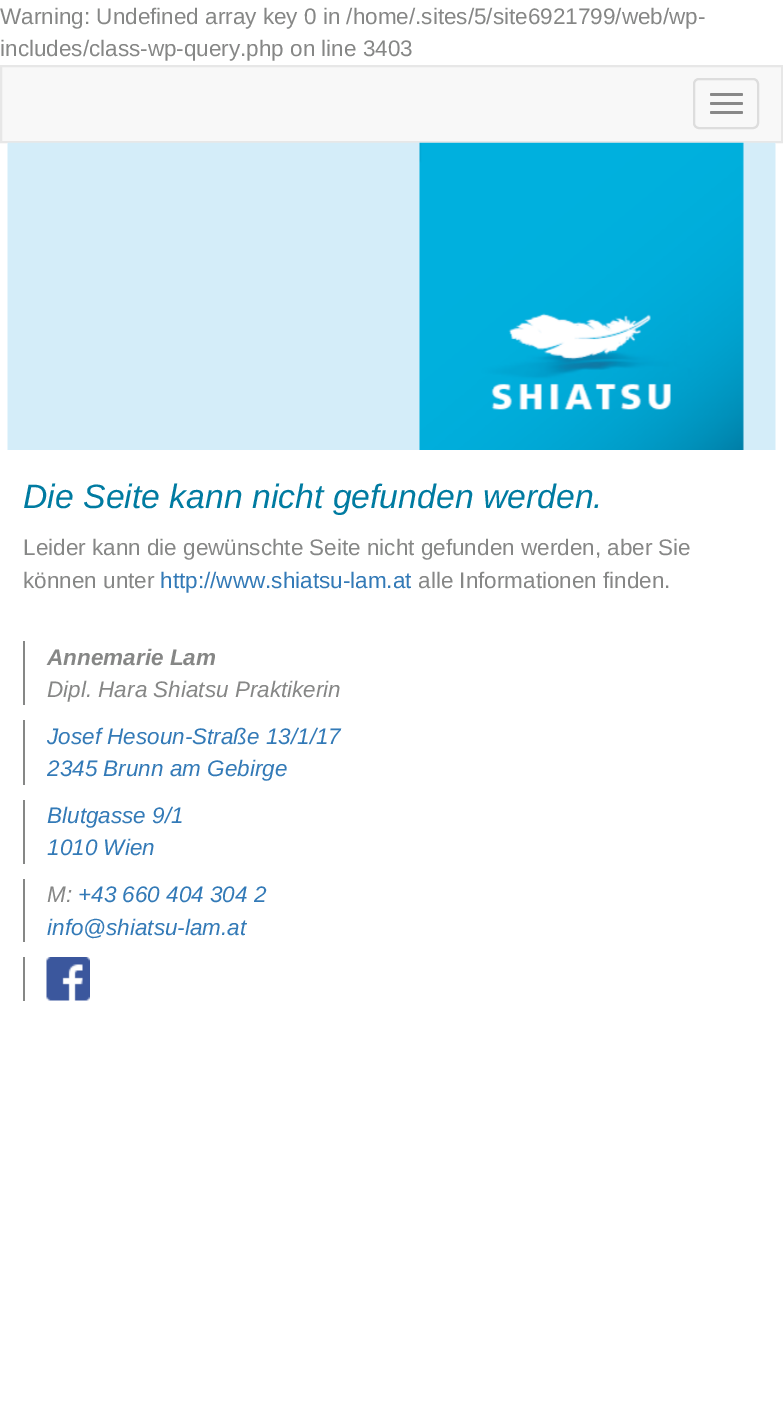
%!PS-Adobe-3.0
%%BoundingBox: 0 0 783 1420
%%LanguageLevel: 3
%%Pages: 1
%%EndComments
%%BeginProlog
/setink { 3 { 255 div 3 1 roll } repeat setrgbcolor } def
/usefont { [ exch dup neg 0 0 3 -1 roll 0 0 ] selectfont } def
/drawtext { setink usefont moveto show } def
/fillbox { setink rectfill } def
/rrect { 5 dict begin { /r /h /w /y /x } { exch def } forall
  x r add y moveto x w add y 2 copy h add r arct x w add y h add x 1 index r arct
  x y h add x y r arct x y 2 copy exch w add exch r arct closepath end } def
/drawimage { 5 dict begin { /h /w /y /x /name } { exch def } forall
  gsave x y translate w h scale
  w h 8 [w 0 0 h 0 0] name (r) file false 3 colorimage grestore end } def
%%EndProlog
%%BeginSetup
<< /PageSize [783 1420] >> setpagedevice
%%EndSetup
%%Page: 1 1
0 1420 translate 1 -1 scale
4 setmiterlimit
0 0 783 1420 255 255 255 fillbox
(Warning: Undefined array key 0 in /home/.sites/5/site6921799/web/wp-) 0 24 /LiberationSans-Regular 22.5 134 135 134 drawtext
(includes/class-wp-query.php on line 3403) 0 56 /LiberationSans-Regular 22.5 134 135 134 drawtext
248 248 248 setink
1 66 moveto 782 66 lineto 782 142 lineto 1 142 lineto closepath gsave fill grestore
231 231 231 setink
2 setlinewidth
stroke
221 221 221 setink
694 79 64 49 5 rrect stroke
136 136 136 setink
710 93 33 3 1.5 rrect fill
710 102 33 3 1.5 rrect fill
710 111 33 3 1.5 rrect fill
(assets/img1.rgb) 7 142 769 308 drawimage
(Die Seite kann nicht gefunden werden.) 23 508 /LiberationSans-Italic 33.75 0 123 161 drawtext
(Leider kann die gewünschte Seite nicht gefunden werden, aber Sie) 23 555 /LiberationSans-Regular 22.5 134 135 134 drawtext
(können unter) 23 588 /LiberationSans-Regular 22.5 134 135 134 drawtext
(http://www.shiatsu-lam.at) 160 588 /LiberationSans-Regular 22.5 51 122 183 drawtext
(alle Informationen finden.) 418 588 /LiberationSans-Regular 22.5 134 135 134 drawtext
23 641 2 64 134 135 134 fillbox
(Annemarie Lam) 47 665 /LiberationSans-BoldItalic 22.5 134 135 134 drawtext
(Dipl. Hara Shiatsu Praktikerin) 47 697 /LiberationSans-Italic 22.5 134 135 134 drawtext
23 720 2 65 134 135 134 fillbox
(Josef Hesoun-Straße 13/1/17) 47 744 /LiberationSans-Italic 22.5 51 122 183 drawtext
(2345 Brunn am Gebirge) 47 776 /LiberationSans-Italic 22.5 51 122 183 drawtext
23 800 2 64 134 135 134 fillbox
(Blutgasse 9/1) 47 823 /LiberationSans-Italic 22.5 51 122 183 drawtext
(1010 Wien) 47 855 /LiberationSans-Italic 22.5 51 122 183 drawtext
23 879 2 63 134 135 134 fillbox
(M:) 47 902 /LiberationSans-Italic 22.5 134 135 134 drawtext
(+43 660 404 304 2) 78 902 /LiberationSans-Italic 22.5 51 122 183 drawtext
(info@shiatsu-lam.at) 47 935 /LiberationSans-Italic 22.5 51 122 183 drawtext
23 957 2 44 134 135 134 fillbox
(assets/img2.rgb) 46 957 44 44 drawimage
showpage
%%EOF
